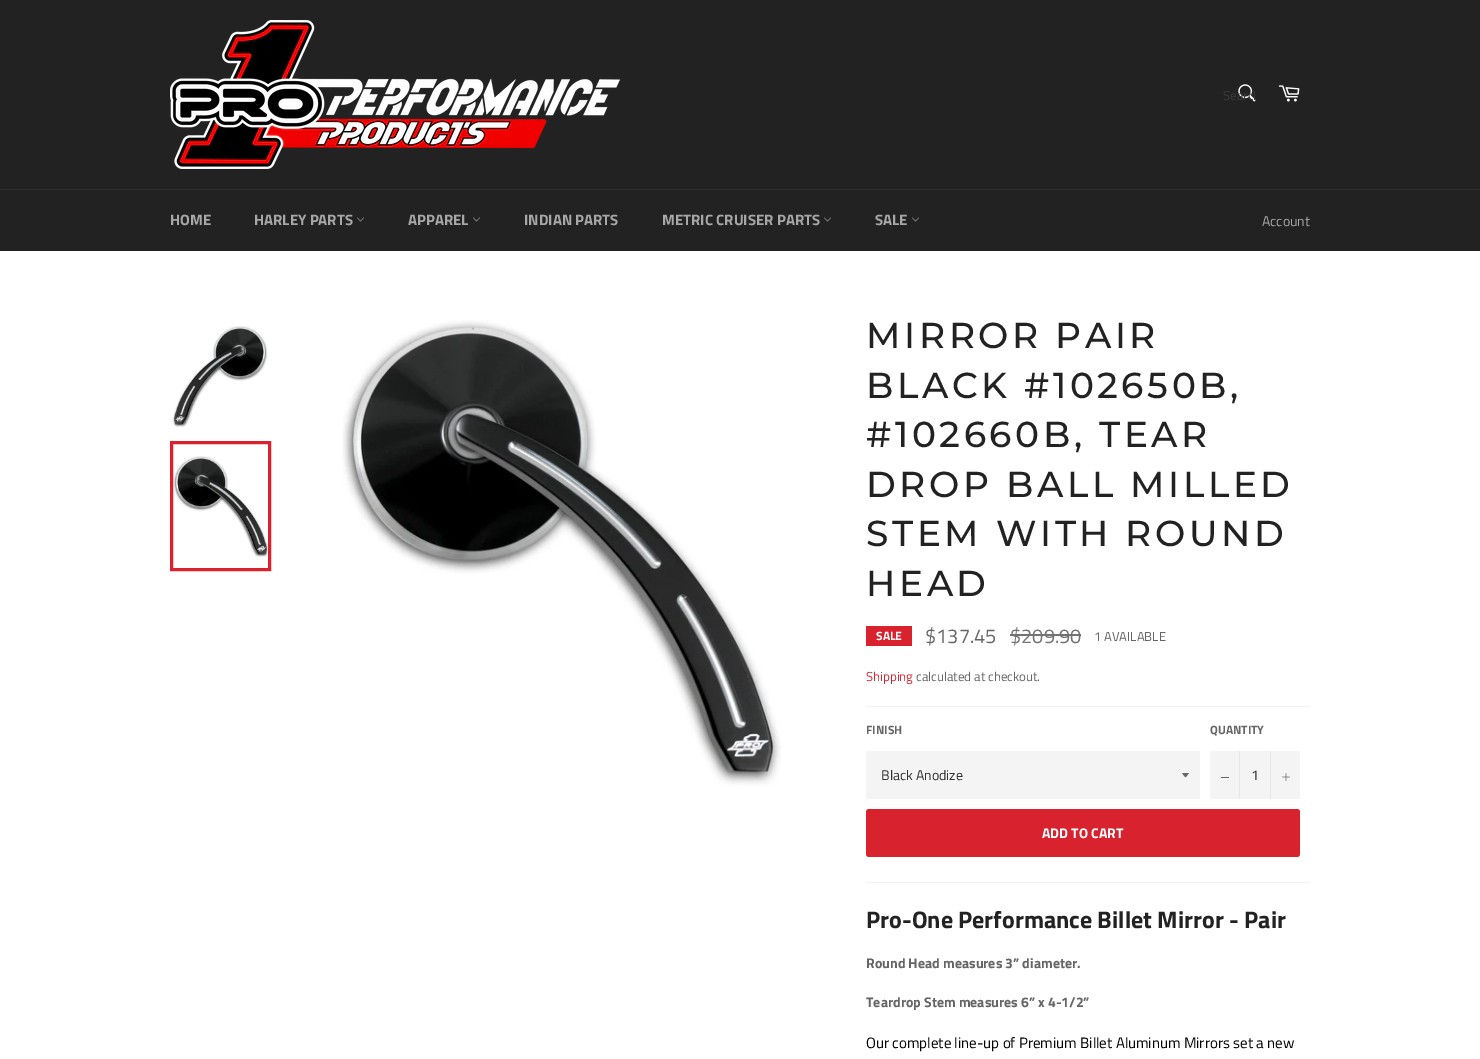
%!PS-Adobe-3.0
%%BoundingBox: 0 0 1480 1059
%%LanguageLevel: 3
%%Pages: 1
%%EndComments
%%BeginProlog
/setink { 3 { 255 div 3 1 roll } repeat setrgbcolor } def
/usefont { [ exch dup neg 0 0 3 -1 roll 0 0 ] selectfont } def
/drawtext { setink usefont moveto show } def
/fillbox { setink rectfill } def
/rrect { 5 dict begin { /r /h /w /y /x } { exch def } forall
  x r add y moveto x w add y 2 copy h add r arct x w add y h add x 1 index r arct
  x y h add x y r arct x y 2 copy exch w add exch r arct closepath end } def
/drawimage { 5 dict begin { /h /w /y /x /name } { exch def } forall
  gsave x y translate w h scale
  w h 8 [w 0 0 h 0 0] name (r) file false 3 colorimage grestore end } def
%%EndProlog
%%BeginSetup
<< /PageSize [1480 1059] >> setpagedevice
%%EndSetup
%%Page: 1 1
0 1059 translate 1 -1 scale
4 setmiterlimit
0 0 1480 1059 34 34 34 fillbox
(assets/img1.rgb) 170 20 450 149 drawimage
(assets/img2.rgb) 1238 84 18 18 drawimage
gsave
1223 85 32 20 rectclip
(Search) 1223 100 /TitilliumWeb-Regular 13 59 59 59 drawtext
grestore
(assets/img3.rgb) 1278 85 22 17 drawimage
0 189 1480 1 47 47 47 fillbox
(HOME) 170 225 /TitilliumWeb-Bold 15 167 167 167 drawtext
(HARLEY PARTS) 254 225 /TitilliumWeb-Bold 15 167 167 167 drawtext
(assets/img4.rgb) 357 217 7 5 drawimage
(APPAREL) 408 225 /TitilliumWeb-Bold 15 167 167 167 drawtext
(assets/img4.rgb) 473 217 7 5 drawimage
(INDIAN PARTS) 524 225 /TitilliumWeb-Bold 15 167 167 167 drawtext
(METRIC CRUISER PARTS) 662 225 /TitilliumWeb-Bold 15 167 167 167 drawtext
(assets/img4.rgb) 824 217 7 5 drawimage
(SALE) 875 225 /TitilliumWeb-Bold 15 167 167 167 drawtext
(assets/img4.rgb) 912 217 7 5 drawimage
(Account) 1262 226 /TitilliumWeb-Regular 14 167 167 167 drawtext
0 251 1480 808 255 255 255 fillbox
(assets/img5.rgb) 172 326 96 101 drawimage
(assets/img6.rgb) 173 456 95 102 drawimage
216 35 47 setink
3 setlinewidth
171.5 442.5 98 127 rectstroke
(assets/img7.rgb) 342 320 440 466 drawimage
/Montserrat-Medium 36 usefont
34 34 34 setink
866 348 moveto 3.6 0 (MIRROR PAIR) ashow
866 398 moveto 3.6 0 (BLACK #102650B,) ashow
866 447 moveto 3.6 0 (#102660B, TEAR) ashow
866 497 moveto 3.6 0 (DROP BALL MILLED) ashow
866 546 moveto 3.6 0 (STEM WITH ROUND) ashow
866 596 moveto 3.6 0 (HEAD) ashow
866 626 46 20 216 35 47 fillbox
(SALE) 876 640 /TitilliumWeb-Bold 12 255 255 255 drawtext
($137.45) 925 643 /TitilliumWeb-Regular 20 102 102 102 drawtext
($209.90) 1010 643 /TitilliumWeb-Regular 20 115 115 115 drawtext
1010 634 71 2 115 115 115 fillbox
(1 AVAILABLE) 1094 641 /TitilliumWeb-Regular 13 102 102 102 drawtext
(Shipping) 866 681 /TitilliumWeb-Regular 13 216 35 47 drawtext
(calculated at checkout.) 916 681 /TitilliumWeb-Regular 13 102 102 102 drawtext
866 706 444 1 240 240 240 fillbox
(FINISH) 866 734 /TitilliumWeb-Bold 12 102 102 102 drawtext
866 751 334 48 244 244 244 fillbox
102 102 102 setink
1182 773 moveto 1186.5 778.5 1184.5 778.5 1189 773 curveto closepath fill
(Black Anodize) 881 780 /TitilliumWeb-Regular 14 51 51 51 drawtext
(QUANTITY) 1210 734 /TitilliumWeb-Bold 12 102 102 102 drawtext
1210 751 90 48 244 244 244 fillbox
1239 751 1 48 231 231 231 fillbox
1221 777 8 1 102 102 102 fillbox
(1) 1251 780 /TitilliumWeb-Regular 14 51 51 51 drawtext
1270 751 1 48 231 231 231 fillbox
(assets/img8.rgb) 1282 773 8 8 drawimage
216 35 47 setink
866 809 434 48 3 rrect fill
(ADD TO CART) 1042 838 /TitilliumWeb-Bold 14 255 255 255 drawtext
866 882 444 1 240 240 240 fillbox
(Pro-One Performance Billet Mirror - Pair) 866 928 /TitilliumWeb-Bold 24 34 34 34 drawtext
(Round Head measures 3” diameter.) 866 968 /TitilliumWeb-Bold 14 102 102 102 drawtext
(Teardrop Stem measures 6” x 4-1/2”) 866 1007 /TitilliumWeb-Bold 14 102 102 102 drawtext
(Our complete line-up of Premium Billet Aluminum Mirrors set a new) 866 1048 /TitilliumWeb-Regular 15 0 0 0 drawtext
showpage
%%EOF
